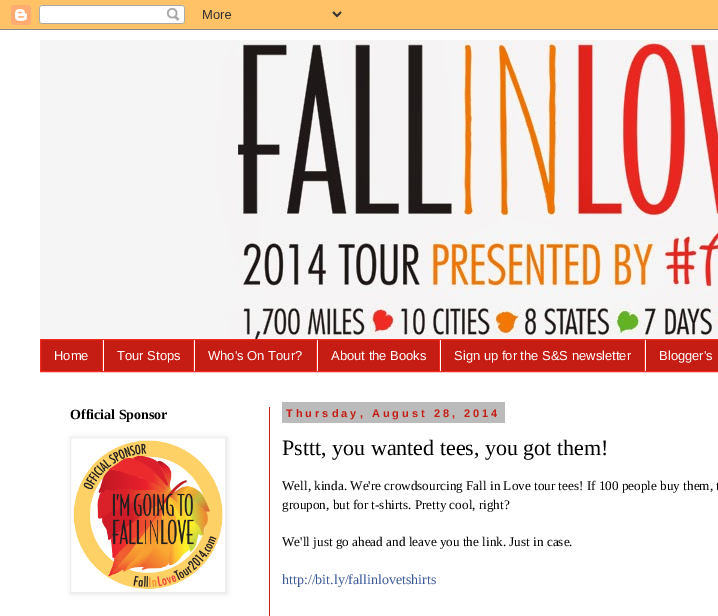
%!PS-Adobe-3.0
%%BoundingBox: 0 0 718 616
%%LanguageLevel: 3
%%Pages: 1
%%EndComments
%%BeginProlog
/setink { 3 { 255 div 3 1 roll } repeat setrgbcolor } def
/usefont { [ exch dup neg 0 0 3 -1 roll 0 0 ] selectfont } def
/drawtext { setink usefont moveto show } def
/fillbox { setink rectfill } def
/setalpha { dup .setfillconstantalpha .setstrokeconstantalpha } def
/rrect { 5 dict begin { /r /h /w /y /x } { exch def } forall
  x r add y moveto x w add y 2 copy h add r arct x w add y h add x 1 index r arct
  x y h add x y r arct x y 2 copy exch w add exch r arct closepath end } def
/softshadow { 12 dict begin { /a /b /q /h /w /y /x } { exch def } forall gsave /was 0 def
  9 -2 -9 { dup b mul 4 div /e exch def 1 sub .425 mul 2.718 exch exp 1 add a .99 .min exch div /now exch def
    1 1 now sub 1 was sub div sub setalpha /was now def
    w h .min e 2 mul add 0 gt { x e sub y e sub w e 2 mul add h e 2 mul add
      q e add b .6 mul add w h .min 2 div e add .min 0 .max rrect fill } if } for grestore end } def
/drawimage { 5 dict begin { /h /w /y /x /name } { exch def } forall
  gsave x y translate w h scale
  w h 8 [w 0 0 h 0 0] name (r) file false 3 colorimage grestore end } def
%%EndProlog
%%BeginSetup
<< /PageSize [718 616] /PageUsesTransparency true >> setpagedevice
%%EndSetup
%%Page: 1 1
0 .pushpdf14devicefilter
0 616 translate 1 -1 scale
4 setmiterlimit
0 0 718 616 255 153 0 fillbox
(assets/img1.rgb) 0 0 718 30 drawimage
0 30 718 586 255 255 255 fillbox
(assets/img2.rgb) 40 40 678 299 drawimage
197 29 19 setink
40.5 339.5 moveto 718.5 339.5 lineto 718.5 371.5 lineto 40.5 371.5 lineto closepath gsave fill grestore
242 41 30 setink
stroke
102 340 1 31 242 41 30 fillbox
(Home) 54 360 /Arimo-Regular 13 255 255 255 drawtext
193 340 1 31 242 41 30 fillbox
103 340 1 31 255 255 255 fillbox
(Tour Stops) 117 360 /Arimo-Regular 13 255 255 255 drawtext
316 340 1 31 242 41 30 fillbox
194 340 1 31 255 255 255 fillbox
(Who's On Tour?) 208 360 /Arimo-Regular 13 255 255 255 drawtext
439 340 1 31 242 41 30 fillbox
317 340 1 31 255 255 255 fillbox
(About the Books) 331 360 /Arimo-Regular 13 255 255 255 drawtext
644 340 1 31 242 41 30 fillbox
440 340 1 31 255 255 255 fillbox
(Sign up for the S&S newsletter) 454 360 /Arimo-Regular 13 255 255 255 drawtext
645 340 1 31 255 255 255 fillbox
(Blogger's) 659 360 /Arimo-Regular 13 255 255 255 drawtext
269 407 1 209 197 29 19 fillbox
(Official Sponsor) 70 419 /LiberationSerif-Bold 14 0 0 0 drawtext
gsave
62 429 moveto 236 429 lineto 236 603 lineto 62 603 lineto closepath 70 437 moveto 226 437 lineto 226 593 lineto 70 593 lineto closepath eoclip newpath
71 438 156 156 0 2.5 0.1 softshadow
grestore
238 238 238 setink
70.5 437.5 155 155 rectstroke
(assets/img3.rgb) 73 440 150 149 drawimage
282 402 223 21 187 187 187 fillbox
/LiberationSans-Bold 11 usefont
197 29 19 setink
286 417 moveto 3 0 (Thursday, August 28, 2014) ashow
(Psttt, you wanted tees, you got them!) 282 455 /LiberationSerif-Regular 22 0 0 0 drawtext
(Well, kinda. We're crowdsourcing Fall in Love tour tees! If 100 people buy them, t) 282 490 /LiberationSerif-Regular 13.2 0 0 0 drawtext
(groupon, but for t-shirts. Pretty cool, right?) 282 509 /LiberationSerif-Regular 13.2 0 0 0 drawtext
(We'll just go ahead and leave you the link. Just in case.) 282 546 /LiberationSerif-Regular 13.2 0 0 0 drawtext
(http://bit.ly/fallinlovetshirts) 282 584 /LiberationSerif-Regular 14 59 89 152 drawtext
.poppdf14devicefilter showpage
%%EOF
